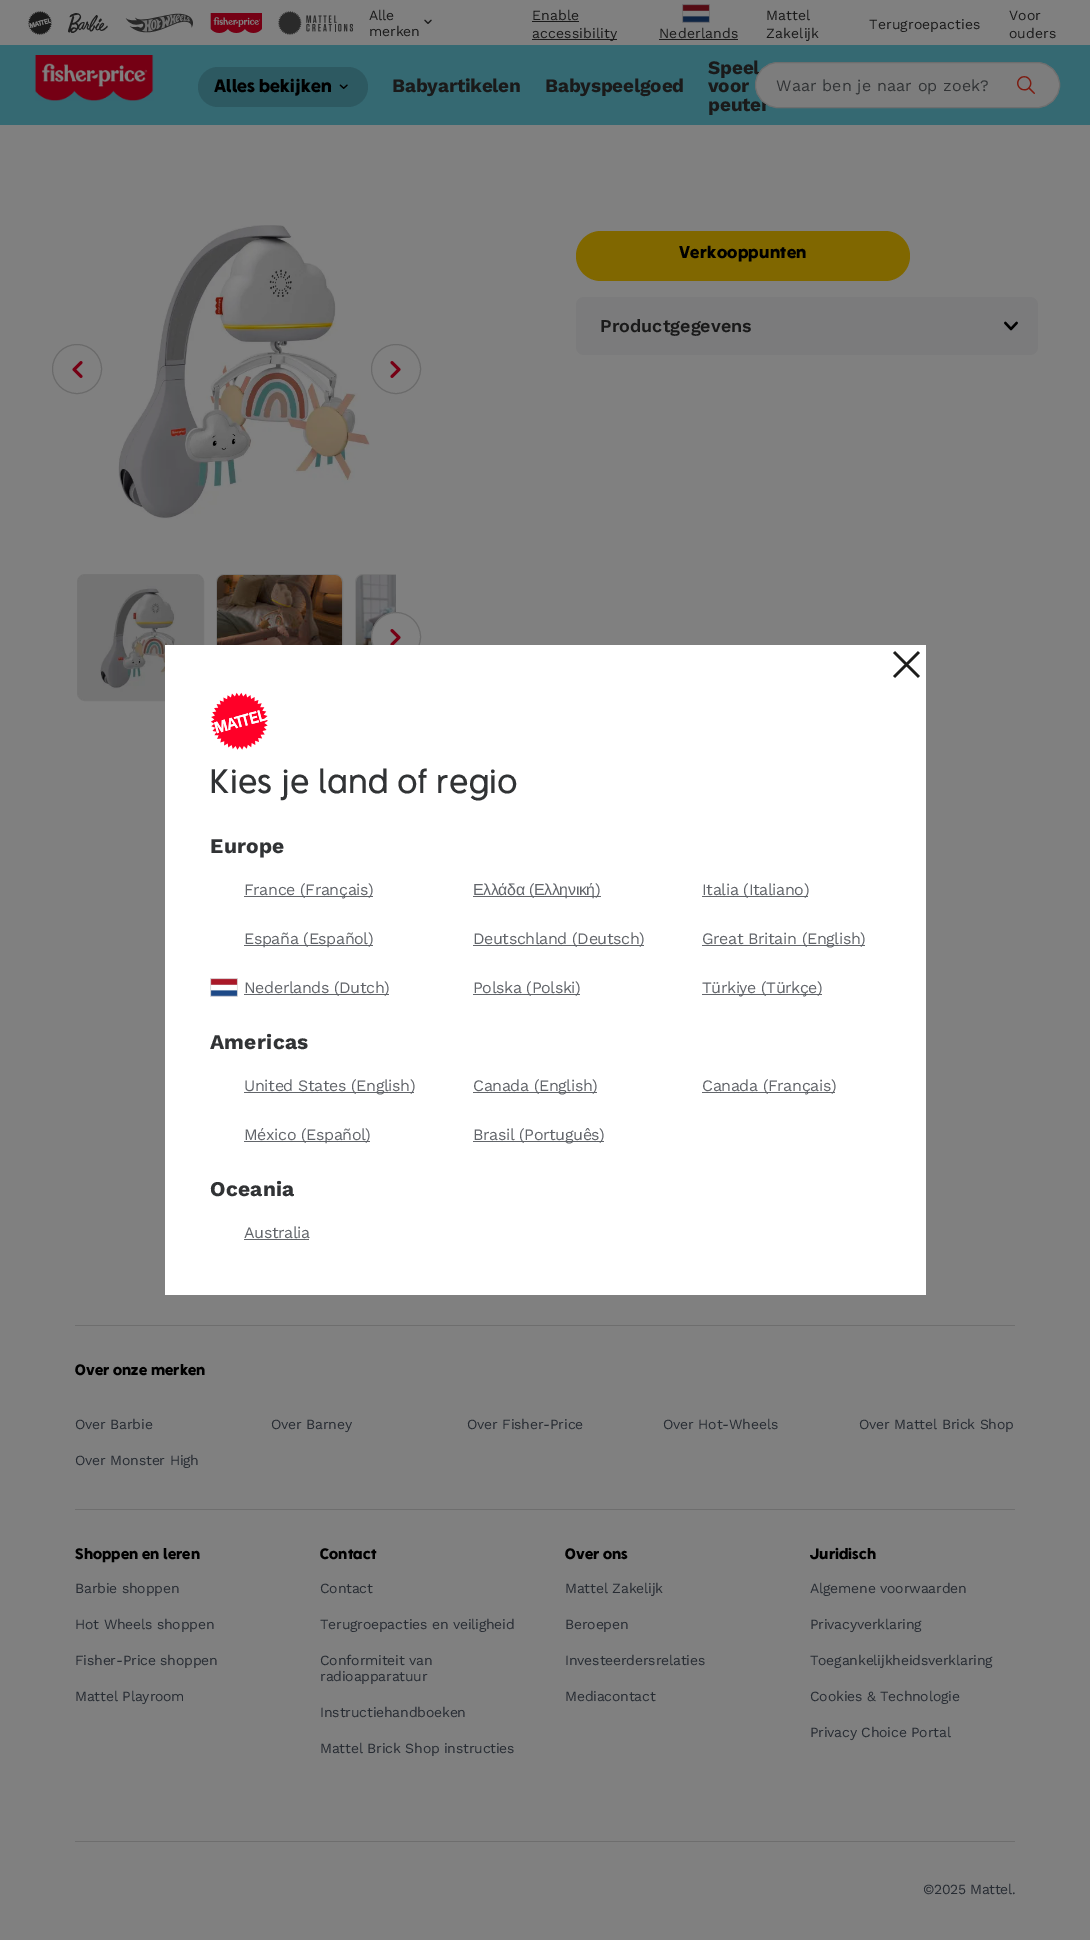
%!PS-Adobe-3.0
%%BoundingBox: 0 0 1090 1940
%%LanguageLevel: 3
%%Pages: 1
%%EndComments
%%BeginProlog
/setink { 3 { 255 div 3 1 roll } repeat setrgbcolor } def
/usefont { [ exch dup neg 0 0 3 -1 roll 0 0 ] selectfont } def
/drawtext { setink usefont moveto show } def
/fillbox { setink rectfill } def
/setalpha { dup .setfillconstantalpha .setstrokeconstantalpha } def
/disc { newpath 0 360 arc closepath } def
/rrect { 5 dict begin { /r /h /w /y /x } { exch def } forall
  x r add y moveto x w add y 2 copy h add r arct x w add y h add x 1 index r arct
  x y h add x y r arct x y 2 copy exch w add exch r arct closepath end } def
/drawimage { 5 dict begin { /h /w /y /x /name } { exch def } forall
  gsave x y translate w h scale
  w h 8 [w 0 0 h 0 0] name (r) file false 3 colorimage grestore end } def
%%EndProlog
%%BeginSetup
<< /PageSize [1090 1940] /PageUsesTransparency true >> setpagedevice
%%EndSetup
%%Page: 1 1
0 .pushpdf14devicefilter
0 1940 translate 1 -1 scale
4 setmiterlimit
0 0 1090 1940 128 128 128 fillbox
(assets/img1.rgb) 28 11 24 24 drawimage
(assets/img2.rgb) 68 13 40 20 drawimage
(assets/img3.rgb) 125 13 68 20 drawimage
(assets/img4.rgb) 210 13 52 20 drawimage
(assets/img5.rgb) 278 11 75 24 drawimage
/WorkSans-Regular 14 usefont
26 26 26 setink
369 20 moveto -0.2 0 (Alle) ashow
369 36 moveto -0.2 0 (merken) ashow
(assets/img6.rgb) 424 19 8 5 drawimage
532 20 moveto 0.1 0 (Enable) ashow
532 21 47 1 26 26 26 fillbox
532 39 85 1 26 26 26 fillbox
532 38 moveto 0.1 0 (accessibility) ashow
(assets/img7.rgb) 682 4 28 19 drawimage
659 38 moveto 0.15 0 (Nederlands) ashow
659 39 79 1 26 26 26 fillbox
766 20 moveto 0.1 0 (Mattel) ashow
766 38 moveto 0.1 0 (Zakelijk) ashow
869 29 moveto 0.1 0 (Terugroepacties) ashow
1009 20 moveto 0.1 0 (Voor) ashow
1009 38 moveto 0.1 0 (ouders) ashow
0 45 1090 80 53 105 114 fillbox
(assets/img8.rgb) 35 55 119 46 drawimage
45 89 97 setink
198 67 170 40 20 rrect fill
/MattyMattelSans-Bold 19 usefont
0 0 0 setink
214 92 moveto 0.2 0 (Alles bekijken) ashow
(assets/img9.rgb) 339 84 9 5 drawimage
/WorkSans-Bold 19 usefont
26 26 26 setink
392 92 moveto -0.2 0 (Babyartikelen) ashow
545 92 moveto -0.2 0 (Babyspeelgoed) ashow
708 74 moveto -0.2 0 (Speel) ashow
708 92 moveto -0.2 0 (voor) ashow
708 111 moveto -0.2 0 (peuter) ashow
125 125 125 setink
755.5 62.5 304 45 22.5 rrect gsave fill grestore
110 110 110 setink
stroke
/WorkSans-Regular 16 usefont
49 51 53 setink
776 91 moveto 0.15 0 (Waar ben je naar op zoek?) ashow
(assets/img10.rgb) 1017 76 18 18 drawimage
106 106 106 setink
77 369 24.5 disc stroke
(assets/img11.rgb) 72 361 11 17 drawimage
(assets/img12.rgb) 118 225 252 294 drawimage
396 369 24.5 disc stroke
(assets/img13.rgb) 390 361 11 17 drawimage
116 116 116 setink
77.5 574.5 126 126 7.5 rrect stroke
(assets/img14.rgb) 78 575 125 125 drawimage
0.1 setalpha
0 0 0 setink
78 575 125 125 7 rrect fill
1 setalpha
116 116 116 setink
216.5 574.5 126 126 7.5 rrect stroke
(assets/img15.rgb) 217 575 125 70 drawimage
gsave
77 574 319 127 rectclip
355.5 574.5 126 126 7.5 rrect stroke
grestore
(assets/img16.rgb) 356 575 40 70 drawimage
128 128 128 setink
396 637 24.5 disc gsave fill grestore
106 106 106 setink
stroke
(assets/img17.rgb) 390 629 11 16 drawimage
128 103 0 setink
576 231 334 50 25 rrect fill
/MattyMattelSans-Bold 18 usefont
0 0 0 setink
679 258 moveto 0.3 0 (Verkooppunten) ashow
123 123 124 setink
576 297 462 58 8 rrect fill
(Productgegevens) 600 332 /WorkSans-SemiBold 18 26 26 26 drawtext
(assets/img18.rgb) 1004 321 14 10 drawimage
165 645 761 650 255 255 255 fillbox
(assets/img19.rgb) 893 651 27 27 drawimage
(assets/img20.rgb) 211 692 57 58 drawimage
/MattyMattelSans-Regular 36 usefont
49 51 53 setink
210 793 moveto 0.3 0 (Kies je land of regio) ashow
/WorkSans-Bold 21 usefont
210 853 moveto 0.25 0 (Europe) ashow
244 896 129 1 98 101 106 fillbox
/WorkSans-Regular 16 usefont
244 895 moveto -0.4 0 (France \(Français\)) ashow
/LiberationSans-Regular 16 usefont
473 895 moveto -0.4 0 (Ελλάδα) ashow
473 896 128 1 98 101 106 fillbox
/WorkSans-Regular 16 usefont
529 895 moveto -0.4 0 (\() ashow
/LiberationSans-Regular 16 usefont
534 895 moveto -0.4 0 (Ελληνική) ashow
/WorkSans-Regular 16 usefont
595 895 moveto -0.4 0 (\)) ashow
702 896 106 1 98 101 106 fillbox
702 895 moveto -0.4 0 (Italia \(Italiano\)) ashow
244 945 129 1 98 101 106 fillbox
244 944 moveto -0.4 0 (España \(Español\)) ashow
473 945 171 1 98 101 106 fillbox
473 944 moveto -0.4 0 (Deutschland \(Deutsch\)) ashow
702 945 163 1 98 101 106 fillbox
702 944 moveto -0.4 0 (Great Britain \(English\)) ashow
(assets/img21.rgb) 210 978 28 19 drawimage
244 994 145 1 98 101 106 fillbox
244 993 moveto -0.4 0 (Nederlands \(Dutch\)) ashow
473 994 107 1 98 101 106 fillbox
473 993 moveto -0.4 0 (Polska \(Polski\)) ashow
702 994 120 1 98 101 106 fillbox
702 993 moveto -0.4 0 (Türkiye \(Türkçe\)) ashow
/WorkSans-Bold 21 usefont
49 51 53 setink
210 1049 moveto 0.25 0 (Americas) ashow
244 1092 170 1 98 101 106 fillbox
/WorkSans-Regular 16 usefont
244 1091 moveto -0.4 0 (United States \(English\)) ashow
473 1092 124 1 98 101 106 fillbox
473 1091 moveto -0.4 0 (Canada \(English\)) ashow
702 1092 133 1 98 101 106 fillbox
702 1091 moveto -0.4 0 (Canada \(Français\)) ashow
244 1141 126 1 98 101 106 fillbox
244 1140 moveto -0.4 0 (México \(Español\)) ashow
473 1141 131 1 98 101 106 fillbox
473 1140 moveto -0.4 0 (Brasil \(Português\)) ashow
/WorkSans-Bold 21 usefont
49 51 53 setink
210 1196 moveto 0.25 0 (Oceania) ashow
/WorkSans-Regular 16 usefont
98 101 106 setink
244 1238 moveto -0.4 0 (Australia) ashow
244 1239 65 1 98 101 106 fillbox
75 1325 940 1 110 110 110 fillbox
75 1509 940 1 110 110 110 fillbox
/MattyMattelSans-Bold 16 usefont
0 0 0 setink
75 1375 moveto 0.15 0 (Over onze merken) ashow
/WorkSans-Regular 14 usefont
39 44 51 setink
75 1429 moveto -0.2 0 (Over Barbie) ashow
271 1429 moveto -0.2 0 (Over Barney) ashow
467 1429 moveto -0.2 0 (Over Fisher-Price) ashow
663 1429 moveto -0.2 0 (Over Hot-Wheels) ashow
859 1429 moveto -0.2 0 (Over Mattel Brick Shop) ashow
75 1465 moveto -0.2 0 (Over Monster High) ashow
/MattyMattelSans-Bold 16 usefont
0 0 0 setink
75 1559 moveto 0.15 0 (Shoppen en leren) ashow
/WorkSans-Regular 14 usefont
39 44 51 setink
75 1593 moveto -0.2 0 (Barbie shoppen) ashow
75 1629 moveto -0.2 0 (Hot Wheels shoppen) ashow
75 1665 moveto -0.2 0 (Fisher-Price shoppen) ashow
75 1701 moveto -0.2 0 (Mattel Playroom) ashow
/MattyMattelSans-Bold 16 usefont
0 0 0 setink
320 1559 moveto 0.15 0 (Contact) ashow
/WorkSans-Regular 14 usefont
39 44 51 setink
320 1593 moveto -0.2 0 (Contact) ashow
320 1629 moveto -0.2 0 (Terugroepacties en veiligheid) ashow
320 1665 moveto -0.2 0 (Conformiteit van) ashow
320 1681 moveto -0.2 0 (radioapparatuur) ashow
320 1717 moveto -0.2 0 (Instructiehandboeken) ashow
320 1753 moveto -0.2 0 (Mattel Brick Shop instructies) ashow
/MattyMattelSans-Bold 16 usefont
0 0 0 setink
565 1559 moveto 0.15 0 (Over ons) ashow
/WorkSans-Regular 14 usefont
39 44 51 setink
565 1593 moveto -0.2 0 (Mattel Zakelijk) ashow
565 1629 moveto -0.2 0 (Beroepen) ashow
565 1665 moveto -0.2 0 (Investeerdersrelaties) ashow
565 1701 moveto -0.2 0 (Mediacontact) ashow
/MattyMattelSans-Bold 16 usefont
0 0 0 setink
810 1559 moveto 0.15 0 (Juridisch) ashow
/WorkSans-Regular 14 usefont
39 44 51 setink
810 1593 moveto -0.2 0 (Algemene voorwaarden) ashow
810 1629 moveto -0.2 0 (Privacyverklaring) ashow
810 1665 moveto -0.2 0 (Toegankelijkheidsverklaring) ashow
810 1701 moveto -0.2 0 (Cookies & Technologie) ashow
810 1737 moveto -0.2 0 (Privacy Choice Portal) ashow
75 1841 940 1 110 110 110 fillbox
39 44 51 setink
923 1894 moveto -0.4 0 (©2025 Mattel.) ashow
.poppdf14devicefilter showpage
%%EOF
